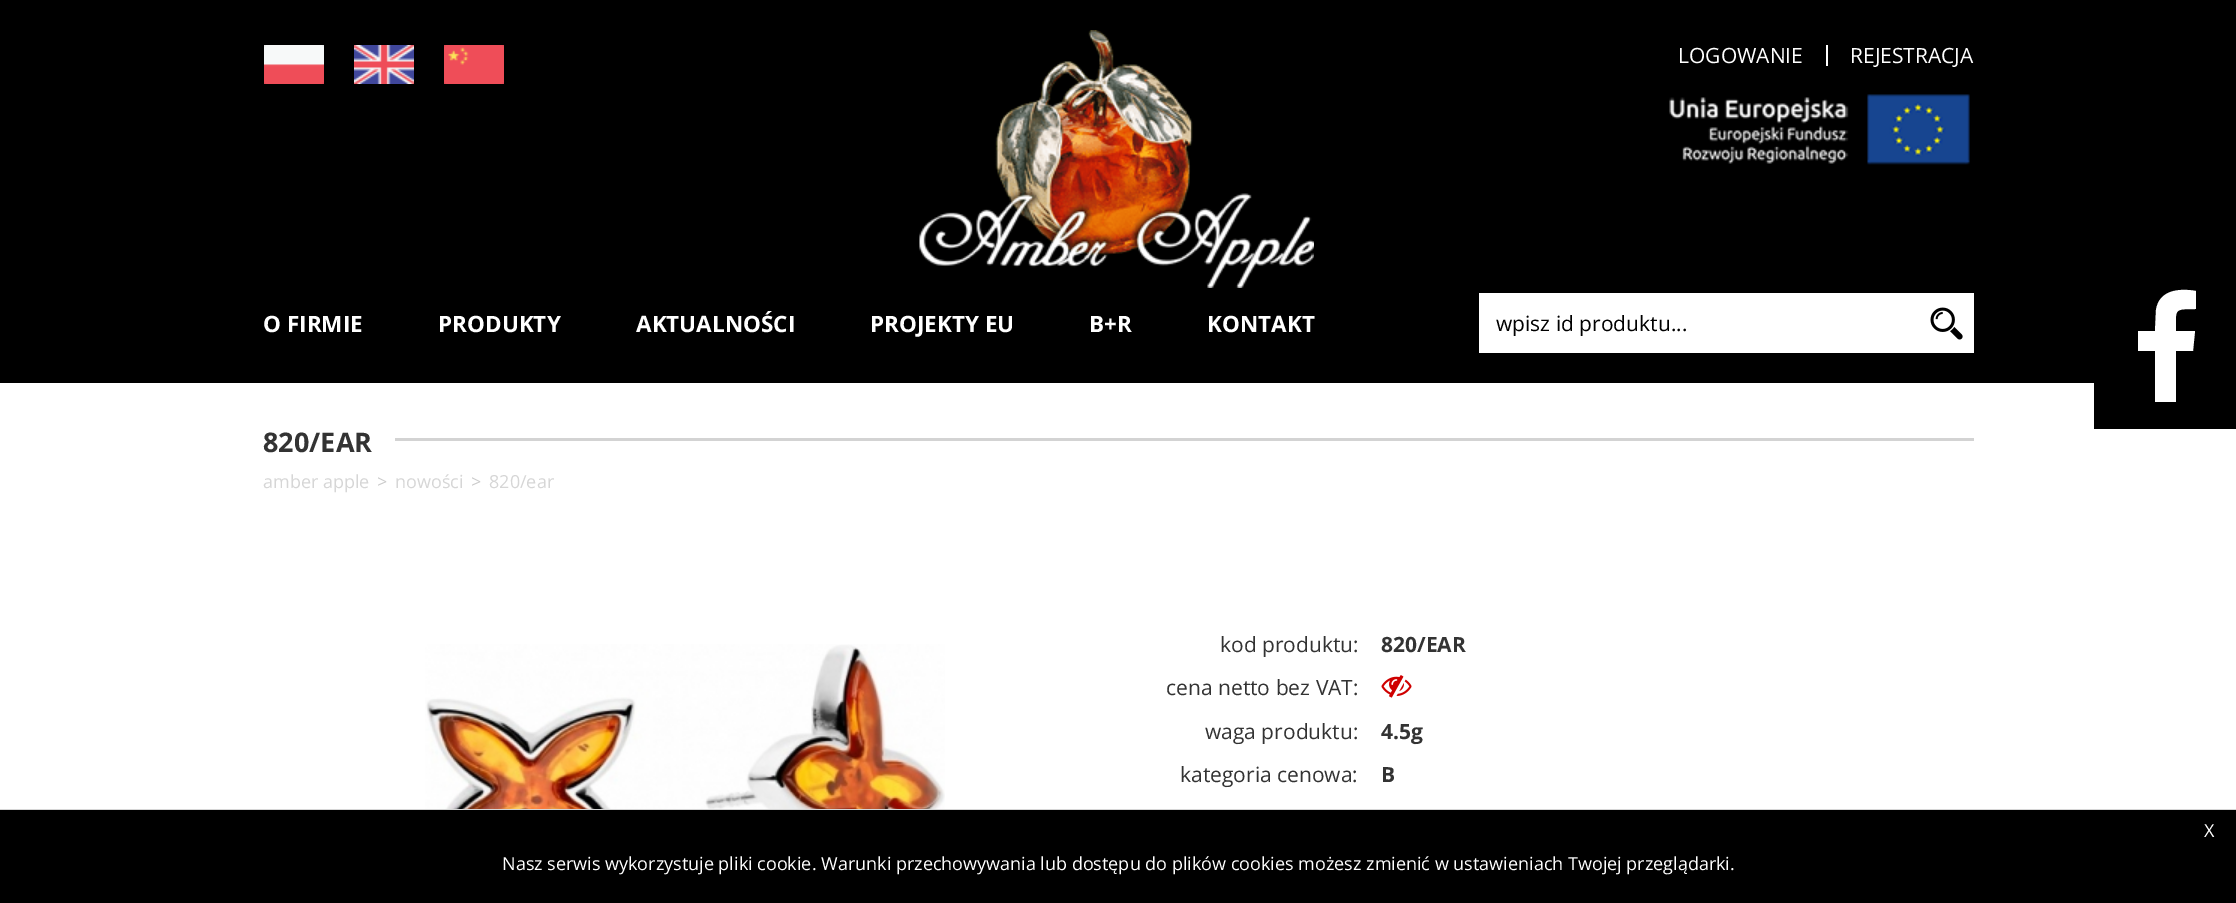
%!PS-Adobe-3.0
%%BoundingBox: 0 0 2236 903
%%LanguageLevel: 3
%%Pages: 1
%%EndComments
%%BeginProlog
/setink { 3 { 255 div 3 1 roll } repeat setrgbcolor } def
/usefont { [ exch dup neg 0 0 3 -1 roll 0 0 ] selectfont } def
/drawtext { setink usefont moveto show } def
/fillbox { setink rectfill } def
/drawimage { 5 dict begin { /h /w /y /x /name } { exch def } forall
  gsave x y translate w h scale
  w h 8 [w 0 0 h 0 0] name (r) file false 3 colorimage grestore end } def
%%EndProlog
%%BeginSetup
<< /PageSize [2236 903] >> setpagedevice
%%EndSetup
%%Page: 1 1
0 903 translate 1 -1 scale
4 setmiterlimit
0 0 2236 903 255 255 255 fillbox
0 0 2236 383 0 0 0 fillbox
(assets/img1.rgb) 264 45 60 39 drawimage
(assets/img2.rgb) 354 45 60 39 drawimage
(assets/img3.rgb) 444 45 60 39 drawimage
(assets/img4.rgb) 919 30 395 258 drawimage
(LOGOWANIE) 1678 63 /OpenSans-Regular 21 255 255 255 drawtext
1826 45 2 21 255 255 255 fillbox
(REJESTRACJA) 1850 63 /OpenSans-Regular 21 255 255 255 drawtext
(assets/img5.rgb) 1669 94 301 71 drawimage
(O FIRMIE) 263 332 /OpenSans-Bold 22.5 255 255 255 drawtext
(PRODUKTY) 438 332 /OpenSans-Bold 22.5 255 255 255 drawtext
(AKTUALNOŚCI) 636 332 /OpenSans-Bold 22.5 255 255 255 drawtext
(PROJEKTY EU) 870 332 /OpenSans-Bold 22.5 255 255 255 drawtext
(B+R) 1089 332 /OpenSans-Bold 22.5 255 255 255 drawtext
(KONTAKT) 1207 332 /OpenSans-Bold 22.5 255 255 255 drawtext
1479 293 495 60 255 255 255 fillbox
(wpisz id produktu...) 1496 331 /OpenSans-Regular 21 0 0 0 drawtext
(assets/img6.rgb) 1930 307 33 33 drawimage
2094 383 142 46 0 0 0 fillbox
255 255 255 setink
2196 291 moveto 2196 309 lineto 2173 309 2176 309 2176 331 curveto 2195 331 lineto 2193 351 lineto 2176 351 lineto 2176 402 lineto 2155 402 lineto 2155 351 lineto 2138 351 lineto 2138 331 lineto 2155 331 lineto 2156 310 lineto 2159 290 2179 288 2196 291 curveto closepath fill
(820/EAR) 263 452 /OpenSans-Bold 27 51 51 51 drawtext
395 438 1579 3 211 211 211 fillbox
(amber apple) 263 488 /OpenSans-Regular 18 214 214 214 drawtext
(>) 377 488 /OpenSans-Regular 18 204 204 204 drawtext
(nowości) 395 488 /OpenSans-Regular 18 214 214 214 drawtext
(>) 471 488 /OpenSans-Regular 18 204 204 204 drawtext
(820/ear) 489 488 /OpenSans-Regular 18 214 214 214 drawtext
(assets/img7.rgb) 425 644 520 165 drawimage
(kod produktu:) 1220 652 /OpenSans-Regular 21 51 51 51 drawtext
(820/EAR) 1381 652 /OpenSans-Bold 21 51 51 51 drawtext
(cena netto bez VAT:) 1166 695 /OpenSans-Regular 21 51 51 51 drawtext
(assets/img8.rgb) 1381 675 31 23 drawimage
(waga produktu:) 1205 739 /OpenSans-Regular 21 51 51 51 drawtext
(4.5g) 1381 739 /OpenSans-Bold 21 51 51 51 drawtext
(kategoria cenowa:) 1180 782 /OpenSans-Regular 21 51 51 51 drawtext
(B) 1381 782 /OpenSans-Bold 21 51 51 51 drawtext
0 809 2236 1 214 214 214 fillbox
0 810 2236 93 0 0 0 fillbox
(X) 2204 837 /OpenSans-Regular 18 255 255 255 drawtext
(Nasz serwis wykorzystuje pliki cookie. Warunki przechowywania lub dostępu do plików cookies możesz zmienić w ustawieniach Twojej przeglądarki.) 502 870 /OpenSans-Regular 18 255 255 255 drawtext
showpage
%%EOF
